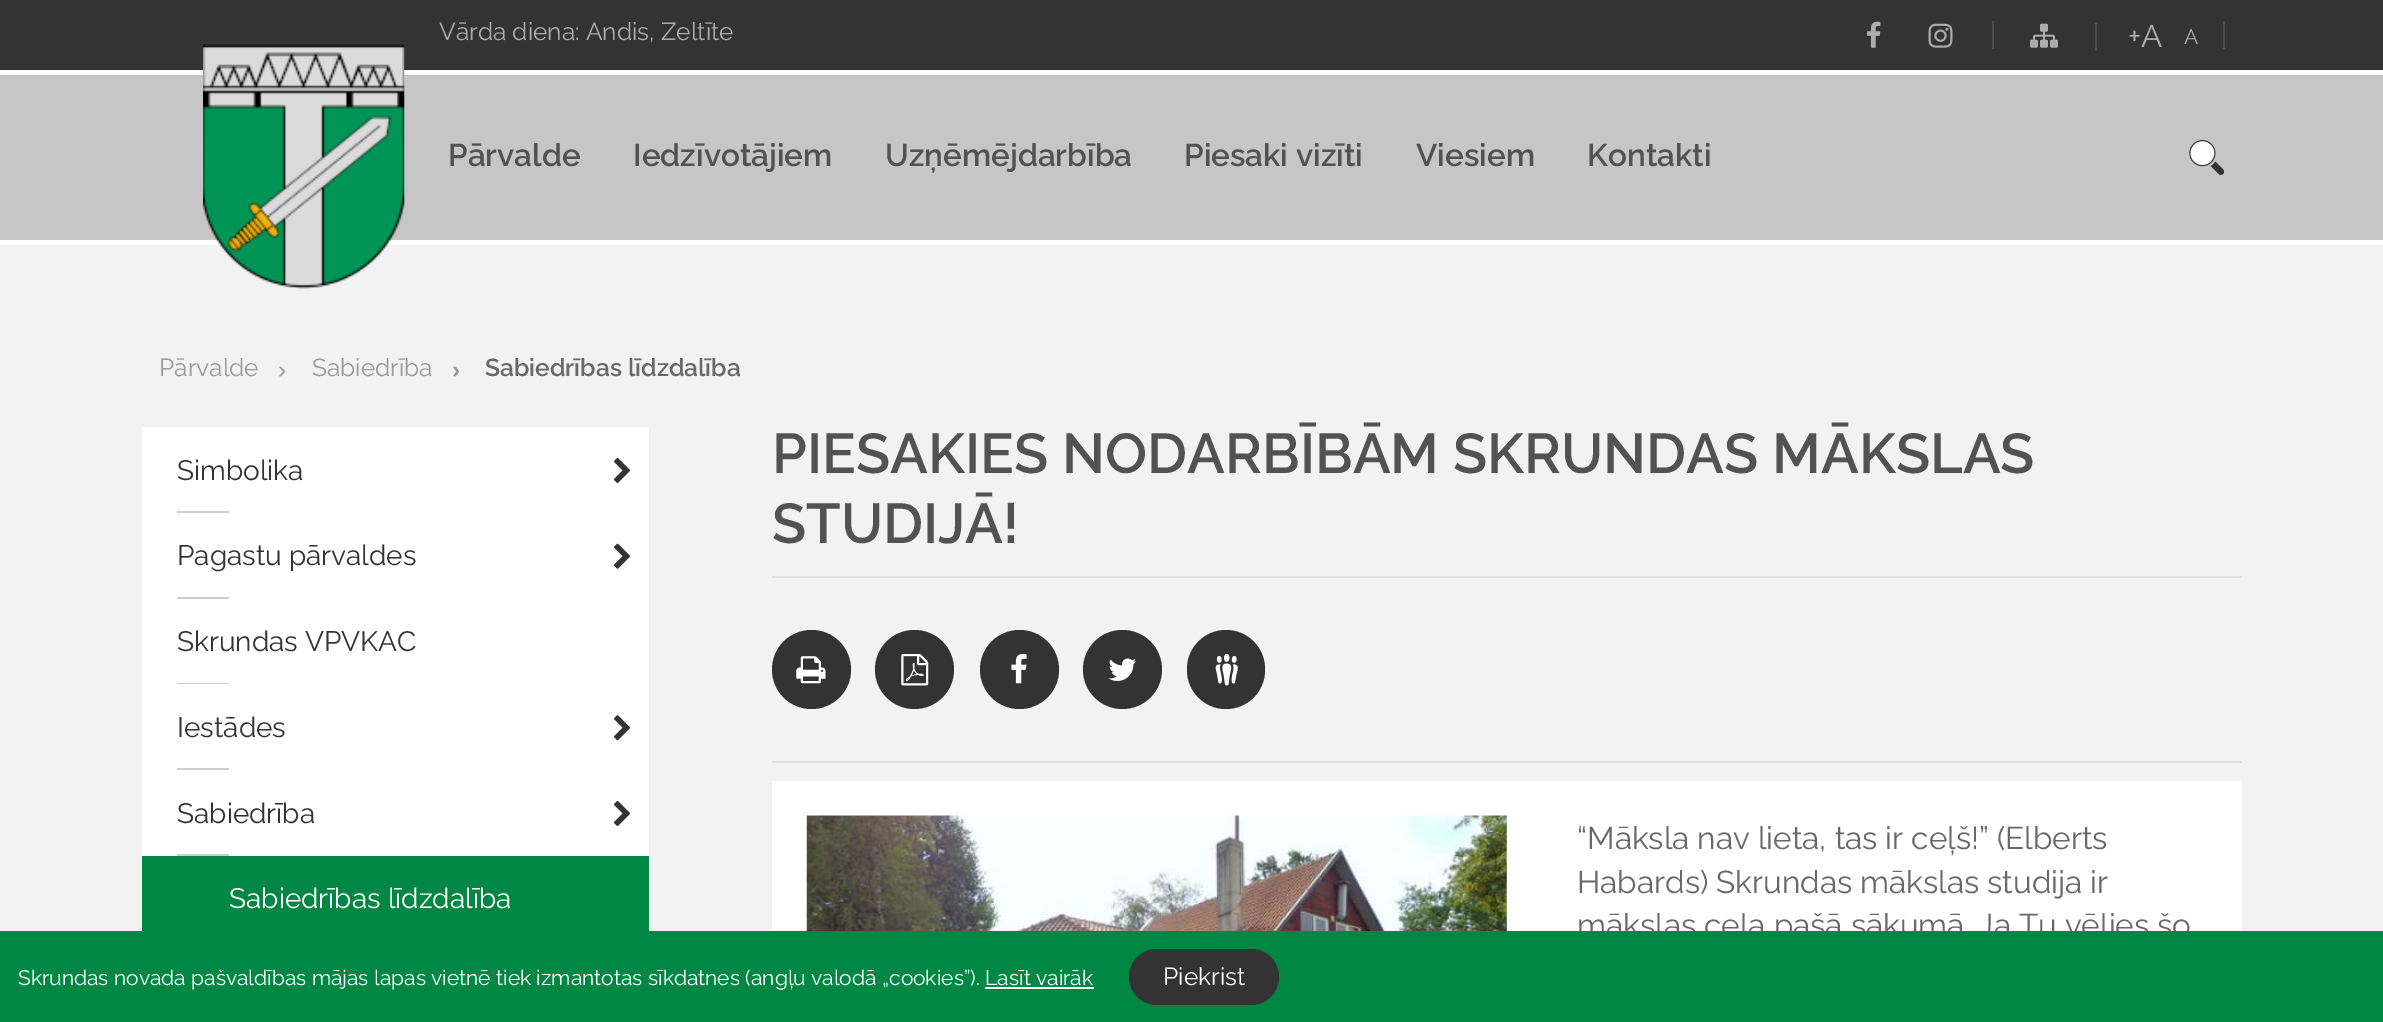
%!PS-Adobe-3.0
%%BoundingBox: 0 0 2383 1022
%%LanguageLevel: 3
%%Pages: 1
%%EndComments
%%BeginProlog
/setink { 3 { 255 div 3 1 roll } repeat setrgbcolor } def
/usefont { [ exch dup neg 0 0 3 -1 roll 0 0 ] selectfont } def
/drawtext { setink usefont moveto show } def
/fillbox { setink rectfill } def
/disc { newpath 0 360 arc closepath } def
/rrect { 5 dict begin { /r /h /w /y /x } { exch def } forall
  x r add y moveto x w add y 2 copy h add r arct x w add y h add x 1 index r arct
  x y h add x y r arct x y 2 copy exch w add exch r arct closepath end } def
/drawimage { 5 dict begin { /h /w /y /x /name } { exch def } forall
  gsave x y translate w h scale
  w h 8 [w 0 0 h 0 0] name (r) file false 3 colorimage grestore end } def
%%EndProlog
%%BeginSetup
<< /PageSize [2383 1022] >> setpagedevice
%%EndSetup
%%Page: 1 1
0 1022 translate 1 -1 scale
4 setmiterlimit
0 0 2383 1022 242 242 242 fillbox
0 75 2383 165 198 198 198 fillbox
0 240 2383 5 255 255 255 fillbox
0 0 2383 70 51 51 51 fillbox
0 70 2383 5 255 255 255 fillbox
(Vārda diena: Andis, Zeltīte) 439 40 /Raleway-Regular 24.5 173 173 173 drawtext
(assets/img1.rgb) 1867 21 14 27 drawimage
(assets/img2.rgb) 1928 23 25 25 drawimage
1992 21 2 28 77 77 77 fillbox
(assets/img3.rgb) 2030 23 28 25 drawimage
2095 23 2 28 77 77 77 fillbox
(+A) 2128 47 /Raleway-Regular 31.5 173 173 173 drawtext
(A) 2184 44 /Raleway-Regular 21 173 173 173 drawtext
2223 21 2 28 77 77 77 fillbox
(assets/img4.rgb) 203 44 202 245 drawimage
(Pārvalde) 448 166 /Raleway-SemiBold 31.5 82 82 82 drawtext
(Iedzīvotājiem) 633 166 /Raleway-SemiBold 31.5 82 82 82 drawtext
(Uzņēmējdarbība) 885 166 /Raleway-SemiBold 31.5 82 82 82 drawtext
(Piesaki vizīti) 1184 166 /Raleway-SemiBold 31.5 82 82 82 drawtext
(Viesiem) 1416 166 /Raleway-SemiBold 31.5 82 82 82 drawtext
(Kontakti) 1587 166 /Raleway-SemiBold 31.5 82 82 82 drawtext
(assets/img5.rgb) 2189 140 35 35 drawimage
(Pārvalde) 159 376 /Raleway-Regular 24.5 153 153 153 drawtext
(›) 278 378 /LiberationSans-Regular 24.5 153 153 153 drawtext
(Sabiedrība) 312 376 /Raleway-Regular 24.5 153 153 153 drawtext
(›) 452 378 /LiberationSans-Bold 24.5 153 153 153 drawtext
(Sabiedrības līdzdalība) 485 376 /Raleway-SemiBold 24.5 104 104 104 drawtext
142 427 507 429 255 255 255 fillbox
(Simbolika) 177 480 /Raleway-Regular 28 51 51 51 drawtext
(assets/img6.rgb) 613 457 17 26 drawimage
177 511 52 2 205 205 205 fillbox
(Pagastu pārvaldes) 177 565 /Raleway-Regular 28 51 51 51 drawtext
(assets/img7.rgb) 613 543 17 26 drawimage
177 597 52 2 205 205 205 fillbox
(Skrundas VPVKAC) 177 651 /Raleway-Regular 28 51 51 51 drawtext
177 683 52 1 205 205 205 fillbox
(Iestādes) 177 737 /Raleway-Regular 28 51 51 51 drawtext
(assets/img8.rgb) 613 715 17 26 drawimage
177 768 52 2 205 205 205 fillbox
(Sabiedrība) 177 823 /Raleway-Regular 28 51 51 51 drawtext
(assets/img6.rgb) 613 800 17 26 drawimage
177 854 52 2 205 205 205 fillbox
142 856 507 75 0 135 68 fillbox
(Sabiedrības līdzdalība) 229 908 /Raleway-Regular 28 255 255 255 drawtext
(PIESAKIES NODARBĪBĀM SKRUNDAS MĀKSLAS) 772 473 /Raleway-SemiBold 56 82 82 82 drawtext
(STUDIJĀ!) 772 543 /Raleway-SemiBold 56 82 82 82 drawtext
772 576 1470 2 223 224 222 fillbox
772 761 1470 2 223 224 222 fillbox
51 51 51 setink
811.5 669.5 39.5 disc fill
(assets/img9.rgb) 796 656 30 28 drawimage
914.5 669.5 39.5 disc fill
(assets/img10.rgb) 901 654 28 32 drawimage
1019.5 669.5 39.5 disc fill
(assets/img11.rgb) 1011 654 16 30 drawimage
1122.5 669.5 39.5 disc fill
(assets/img12.rgb) 1108 658 29 23 drawimage
1187 630 78 79 39 rrect fill
(assets/img13.rgb) 1215 654 23 32 drawimage
772 781 1470 150 255 255 255 fillbox
(assets/img14.rgb) 806 815 701 116 drawimage
(“Māksla nav lieta, tas ir ceļš!” \(Elberts) 1577 849 /Raleway-Regular 31.5 104 104 104 drawtext
(Habards\) Skrundas mākslas studija ir) 1577 893 /Raleway-Regular 31.5 104 104 104 drawtext
(mākslas ceļa pašā sākumā. Ja Tu vēlies šo) 1577 936 /Raleway-Regular 31.5 104 104 104 drawtext
0 931 2383 91 0 135 68 fillbox
(Skrundas novada pašvaldības mājas lapas vietnē tiek izmantotas sīkdatnes \(angļu valodā „cookies”\). Lasīt vairāk) 18 985 /Raleway-Regular 21 255 255 255 drawtext
985 987 109 2 255 255 255 fillbox
51 51 51 setink
1129 949 150 56 28 rrect fill
(Piekrist) 1163 985 /Raleway-Regular 24.5 255 255 255 drawtext
showpage
%%EOF
